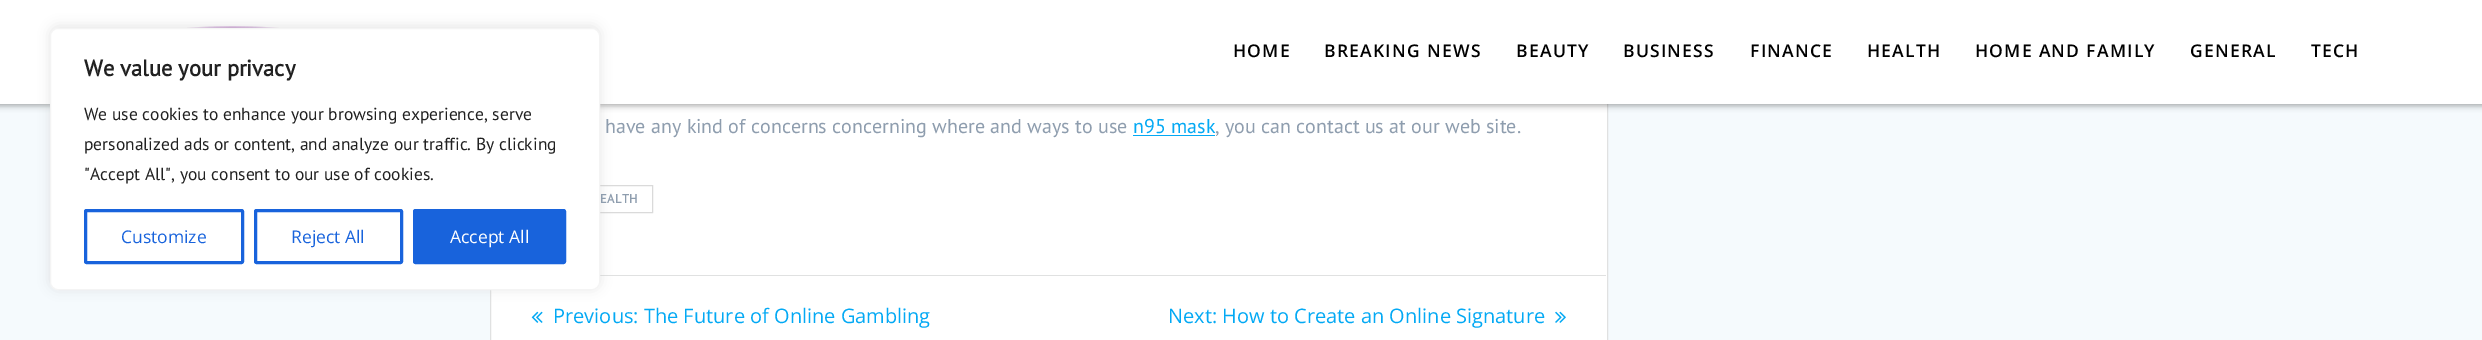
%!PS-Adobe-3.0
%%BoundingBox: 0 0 2482 340
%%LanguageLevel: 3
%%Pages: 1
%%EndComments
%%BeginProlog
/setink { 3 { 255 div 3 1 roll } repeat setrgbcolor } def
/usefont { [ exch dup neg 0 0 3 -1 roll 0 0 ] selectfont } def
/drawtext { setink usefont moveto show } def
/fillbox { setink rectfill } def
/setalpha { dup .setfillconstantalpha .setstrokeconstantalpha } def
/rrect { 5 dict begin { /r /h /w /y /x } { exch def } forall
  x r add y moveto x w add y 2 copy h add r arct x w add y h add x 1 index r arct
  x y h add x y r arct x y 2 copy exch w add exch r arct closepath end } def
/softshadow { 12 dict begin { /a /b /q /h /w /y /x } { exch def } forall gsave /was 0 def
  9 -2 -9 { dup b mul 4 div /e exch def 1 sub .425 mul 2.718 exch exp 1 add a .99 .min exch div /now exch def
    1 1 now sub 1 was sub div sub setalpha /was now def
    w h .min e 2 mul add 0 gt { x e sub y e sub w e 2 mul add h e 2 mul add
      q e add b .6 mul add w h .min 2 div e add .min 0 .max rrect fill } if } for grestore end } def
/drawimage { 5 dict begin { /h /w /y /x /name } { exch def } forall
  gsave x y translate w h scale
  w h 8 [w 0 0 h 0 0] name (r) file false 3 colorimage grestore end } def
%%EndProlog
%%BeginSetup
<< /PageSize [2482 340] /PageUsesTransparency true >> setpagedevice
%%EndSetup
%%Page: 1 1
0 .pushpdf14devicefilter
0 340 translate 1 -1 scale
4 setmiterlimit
0 0 2482 340 245 250 253 fillbox
491 104 1116 236 255 255 255 fillbox
224 225 225 setink
490.5 -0.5 1117 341 rectstroke
0 0 0 setink
-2 -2 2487 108 0 3 0.33 softshadow
0 0 2482 104 255 255 255 fillbox
(assets/img1.rgb) 187 26 92 2 drawimage
/OpenSans-SemiBold 17.5 usefont
0 0 0 setink
1233 57 moveto 1.25 0 (HOME) ashow
1324 57 moveto 1.25 0 (BREAKING NEWS) ashow
1516 57 moveto 1.25 0 (BEAUTY) ashow
1623 57 moveto 1.25 0 (BUSINESS) ashow
1750 57 moveto 1.25 0 (FINANCE) ashow
1867 57 moveto 1.25 0 (HEALTH) ashow
1975 57 moveto 1.25 0 (HOME AND FAMILY) ashow
2190 57 moveto 1.25 0 (GENERAL) ashow
2311 57 moveto 1.25 0 (TECH) ashow
218 218 218 setink
578.5 185.5 74 27 rectstroke
600 275 1006 1 224 225 225 fillbox
172 171 171 setink
50 26 550 263 8 6 0.3 softshadow
255 255 255 setink
50.5 28.5 549 261 7.5 rrect gsave fill grestore
244 244 244 setink
stroke
(We value your privacy) 84 76 /PTSans-Bold 22.5 33 33 33 drawtext
(We use cookies to enhance your browsing experience, serve) 84 120 /PTSans-Regular 17.5 33 33 33 drawtext
(personalized ads or content, and analyze our traffic. By clicking) 84 150 /PTSans-Regular 17.5 33 33 33 drawtext
("Accept All", you consent to our use of cookies.) 84 180 /PTSans-Regular 17.5 33 33 33 drawtext
24 99 220 setink
3 setlinewidth
85.5 210.5 157 52 1 rrect stroke
(Customize) 121 243 /OpenSans-Regular 17.5 24 99 220 drawtext
255.5 210.5 146 52 1 rrect stroke
(Reject All) 291 243 /OpenSans-Regular 17.5 24 99 220 drawtext
414.5 210.5 150 52 1 rrect gsave fill grestore
stroke
(Accept All) 450 243 /OpenSans-Regular 17.5 255 255 255 drawtext
(have any kind of concerns concerning where and ways to use) 605 133 /PTSans-Regular 20 142 157 174 drawtext
(n95 mask) 1133 133 /PTSans-Regular 20 3 169 244 drawtext
1133 135 82 1 3 169 244 fillbox
(, you can contact us at our web site.) 1215 133 /PTSans-Regular 20 142 157 174 drawtext
/PTSans-Bold 12.5 usefont
600 203 moveto 0.5 0 (EALTH) ashow
(assets/img2.rgb) 531 311 12 12 drawimage
(Previous: The Future of Online Gambling) 553 323 /OpenSans-Regular 20 3 169 244 drawtext
(Next: How to Create an Online Signature) 1168 323 /OpenSans-Regular 20 3 169 244 drawtext
(assets/img3.rgb) 1555 311 11 12 drawimage
.poppdf14devicefilter showpage
%%EOF
